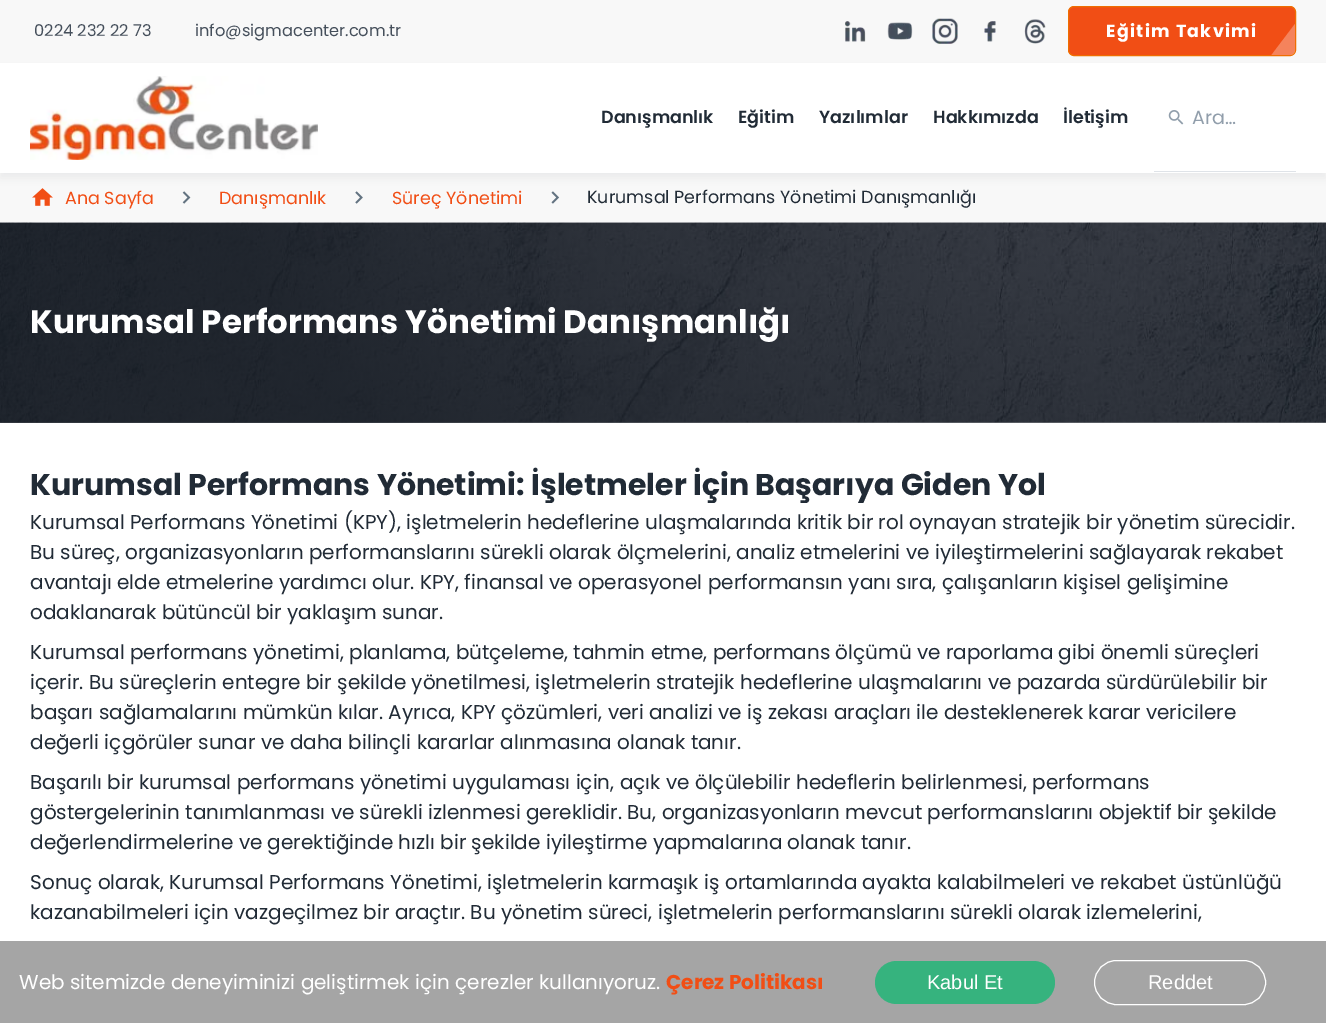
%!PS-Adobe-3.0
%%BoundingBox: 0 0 1326 1023
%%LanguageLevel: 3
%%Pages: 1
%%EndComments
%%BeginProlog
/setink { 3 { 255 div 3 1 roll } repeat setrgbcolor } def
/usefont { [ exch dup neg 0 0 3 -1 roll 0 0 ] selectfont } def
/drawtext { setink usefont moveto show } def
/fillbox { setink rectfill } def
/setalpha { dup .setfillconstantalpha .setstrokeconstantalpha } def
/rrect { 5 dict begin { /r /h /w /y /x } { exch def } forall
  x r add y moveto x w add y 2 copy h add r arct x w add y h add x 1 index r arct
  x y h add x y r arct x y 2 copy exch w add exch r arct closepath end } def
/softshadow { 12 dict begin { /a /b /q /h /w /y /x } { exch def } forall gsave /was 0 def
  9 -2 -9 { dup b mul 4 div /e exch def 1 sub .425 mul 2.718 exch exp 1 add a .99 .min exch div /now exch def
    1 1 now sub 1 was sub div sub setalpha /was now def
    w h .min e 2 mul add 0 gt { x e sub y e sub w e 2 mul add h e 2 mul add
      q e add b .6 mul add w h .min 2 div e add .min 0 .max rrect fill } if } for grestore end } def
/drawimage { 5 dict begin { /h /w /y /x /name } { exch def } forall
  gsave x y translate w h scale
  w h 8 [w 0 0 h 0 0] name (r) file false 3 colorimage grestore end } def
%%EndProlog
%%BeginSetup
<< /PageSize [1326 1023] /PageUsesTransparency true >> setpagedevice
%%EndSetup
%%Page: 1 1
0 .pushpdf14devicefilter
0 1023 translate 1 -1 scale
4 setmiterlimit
0 0 1326 1023 255 255 255 fillbox
gsave
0 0 moveto 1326 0 lineto 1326 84 lineto 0 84 lineto closepath 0 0 moveto 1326 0 lineto 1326 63 lineto 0 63 lineto closepath eoclip newpath
0 0 0 setink
0 5 1326 63 0 5 0.1 softshadow
grestore
0.17 setalpha
0 0 1326 63 215 215 215 fillbox
1 setalpha
(0224 232 22 73) 34 36 /Poppins-Regular 16.25 69 79 91 drawtext
(info@sigmacenter.com.tr) 195 36 /Poppins-Regular 16.25 69 79 91 drawtext
(assets/img1.rgb) 845 21 21 21 drawimage
(assets/img2.rgb) 887 22 26 18 drawimage
(assets/img3.rgb) 932 18 26 26 drawimage
(assets/img4.rgb) 984 21 12 21 drawimage
(assets/img5.rgb) 1024 19 22 25 drawimage
241 78 21 setink
1068.5 6.5 227 49 5.5 rrect gsave fill grestore
239 110 1 setink
stroke
/Poppins-Bold 17.5 usefont
255 255 255 setink
1106 37 moveto 1.25 0 (Eğitim Takvimi) ashow
0.3 setalpha
1271.5 55 moveto 1295 24 lineto 1295 50 lineto 1295 53 1293 55 1290 55 curveto closepath fill
1 setalpha
0 173 1326 50 248 248 248 fillbox
(assets/img8.rgb) 32 188 21 18 drawimage
(assets/img9.rgb) 182 191 9 13 drawimage
(assets/img10.rgb) 355 191 8 13 drawimage
(assets/img11.rgb) 551 191 9 13 drawimage
145 158 171 setink
0 68 1326 110 0 5 0.16 softshadow
0 63 1326 110 255 255 255 fillbox
(assets/img6.rgb) 30 76 288 84 drawimage
(Danışmanlık) 601 123 /Poppins-SemiBold 17.5 33 43 54 drawtext
(Eğitim) 738 123 /Poppins-SemiBold 17.5 33 43 54 drawtext
(Yazılımlar) 819 123 /Poppins-SemiBold 17.5 33 43 54 drawtext
(Hakkımızda) 933 123 /Poppins-SemiBold 17.5 33 43 54 drawtext
(İletişim) 1063 123 /Poppins-SemiBold 17.5 33 43 54 drawtext
1154 171 142 1 223 227 232 fillbox
(assets/img7.rgb) 1168 110 16 15 drawimage
(Ara…) 1192 124 /Poppins-Regular 19 145 158 171 drawtext
(Ana Sayfa) 65 204 /Poppins-Regular 17.5 241 78 21 drawtext
(Danışmanlık) 219 204 /Poppins-Regular 17.5 241 78 21 drawtext
(Süreç Yönetimi) 392 204 /Poppins-Regular 17.5 241 78 21 drawtext
(Kurumsal Performans Yönetimi Danışmanlığı) 587 203 /Poppins-Regular 17.5 33 43 54 drawtext
(assets/img12.rgb) 0 222 1326 201 drawimage
(Kurumsal Performans Yönetimi Danışmanlığı) 30 333 /Poppins-Bold 32.5 255 255 255 drawtext
(Kurumsal Performans Yönetimi: İşletmeler İçin Başarıya Giden Yol) 30 495 /Poppins-Bold 30 33 43 54 drawtext
(Kurumsal Performans Yönetimi \(KPY\), işletmelerin hedeflerine ulaşmalarında kritik bir rol oynayan stratejik bir yönetim sürecidir.) 30 529 /Poppins-Regular 20 33 43 54 drawtext
(Bu süreç, organizasyonların performanslarını sürekli olarak ölçmelerini, analiz etmelerini ve iyileştirmelerini sağlayarak rekabet) 30 559 /Poppins-Regular 20 33 43 54 drawtext
(avantajı elde etmelerine yardımcı olur. KPY, finansal ve operasyonel performansın yanı sıra, çalışanların kişisel gelişimine) 30 589 /Poppins-Regular 20 33 43 54 drawtext
(odaklanarak bütüncül bir yaklaşım sunar.) 30 619 /Poppins-Regular 20 33 43 54 drawtext
(Kurumsal performans yönetimi, planlama, bütçeleme, tahmin etme, performans ölçümü ve raporlama gibi önemli süreçleri) 30 659 /Poppins-Regular 20 33 43 54 drawtext
(içerir. Bu süreçlerin entegre bir şekilde yönetilmesi, işletmelerin stratejik hedeflerine ulaşmalarını ve pazarda sürdürülebilir bir) 30 689 /Poppins-Regular 20 33 43 54 drawtext
(başarı sağlamalarını mümkün kılar. Ayrıca, KPY çözümleri, veri analizi ve iş zekası araçları ile desteklenerek karar vericilere) 30 719 /Poppins-Regular 20 33 43 54 drawtext
(değerli içgörüler sunar ve daha bilinçli kararlar alınmasına olanak tanır.) 30 749 /Poppins-Regular 20 33 43 54 drawtext
(Başarılı bir kurumsal performans yönetimi uygulaması için, açık ve ölçülebilir hedeflerin belirlenmesi, performans) 30 789 /Poppins-Regular 20 33 43 54 drawtext
(göstergelerinin tanımlanması ve sürekli izlenmesi gereklidir. Bu, organizasyonların mevcut performanslarını objektif bir şekilde) 30 819 /Poppins-Regular 20 33 43 54 drawtext
(değerlendirmelerine ve gerektiğinde hızlı bir şekilde iyileştirme yapmalarına olanak tanır.) 30 849 /Poppins-Regular 20 33 43 54 drawtext
(Sonuç olarak, Kurumsal Performans Yönetimi, işletmelerin karmaşık iş ortamlarında ayakta kalabilmeleri ve rekabet üstünlüğü) 30 889 /Poppins-Regular 20 33 43 54 drawtext
(kazanabilmeleri için vazgeçilmez bir araçtır. Bu yönetim süreci, işletmelerin performanslarını sürekli olarak izlemelerini,) 30 919 /Poppins-Regular 20 33 43 54 drawtext
0 941 1326 82 165 165 165 fillbox
(Web sitemizde deneyiminizi geliştirmek için çerezler kullanıyoruz.) 19 989 /Poppins-Regular 20 255 255 255 drawtext
(Çerez Politikası) 666 989 /Poppins-Bold 20 241 78 21 drawtext
54 179 126 setink
875 961 180 43 21.5 rrect fill
(Kabul Et) 927 989 /LiberationSans-Regular 20 255 255 255 drawtext
1094.5 960.5 171 44 22 rrect stroke
(Reddet) 1148 989 /LiberationSans-Regular 20 255 255 255 drawtext
.poppdf14devicefilter showpage
%%EOF
